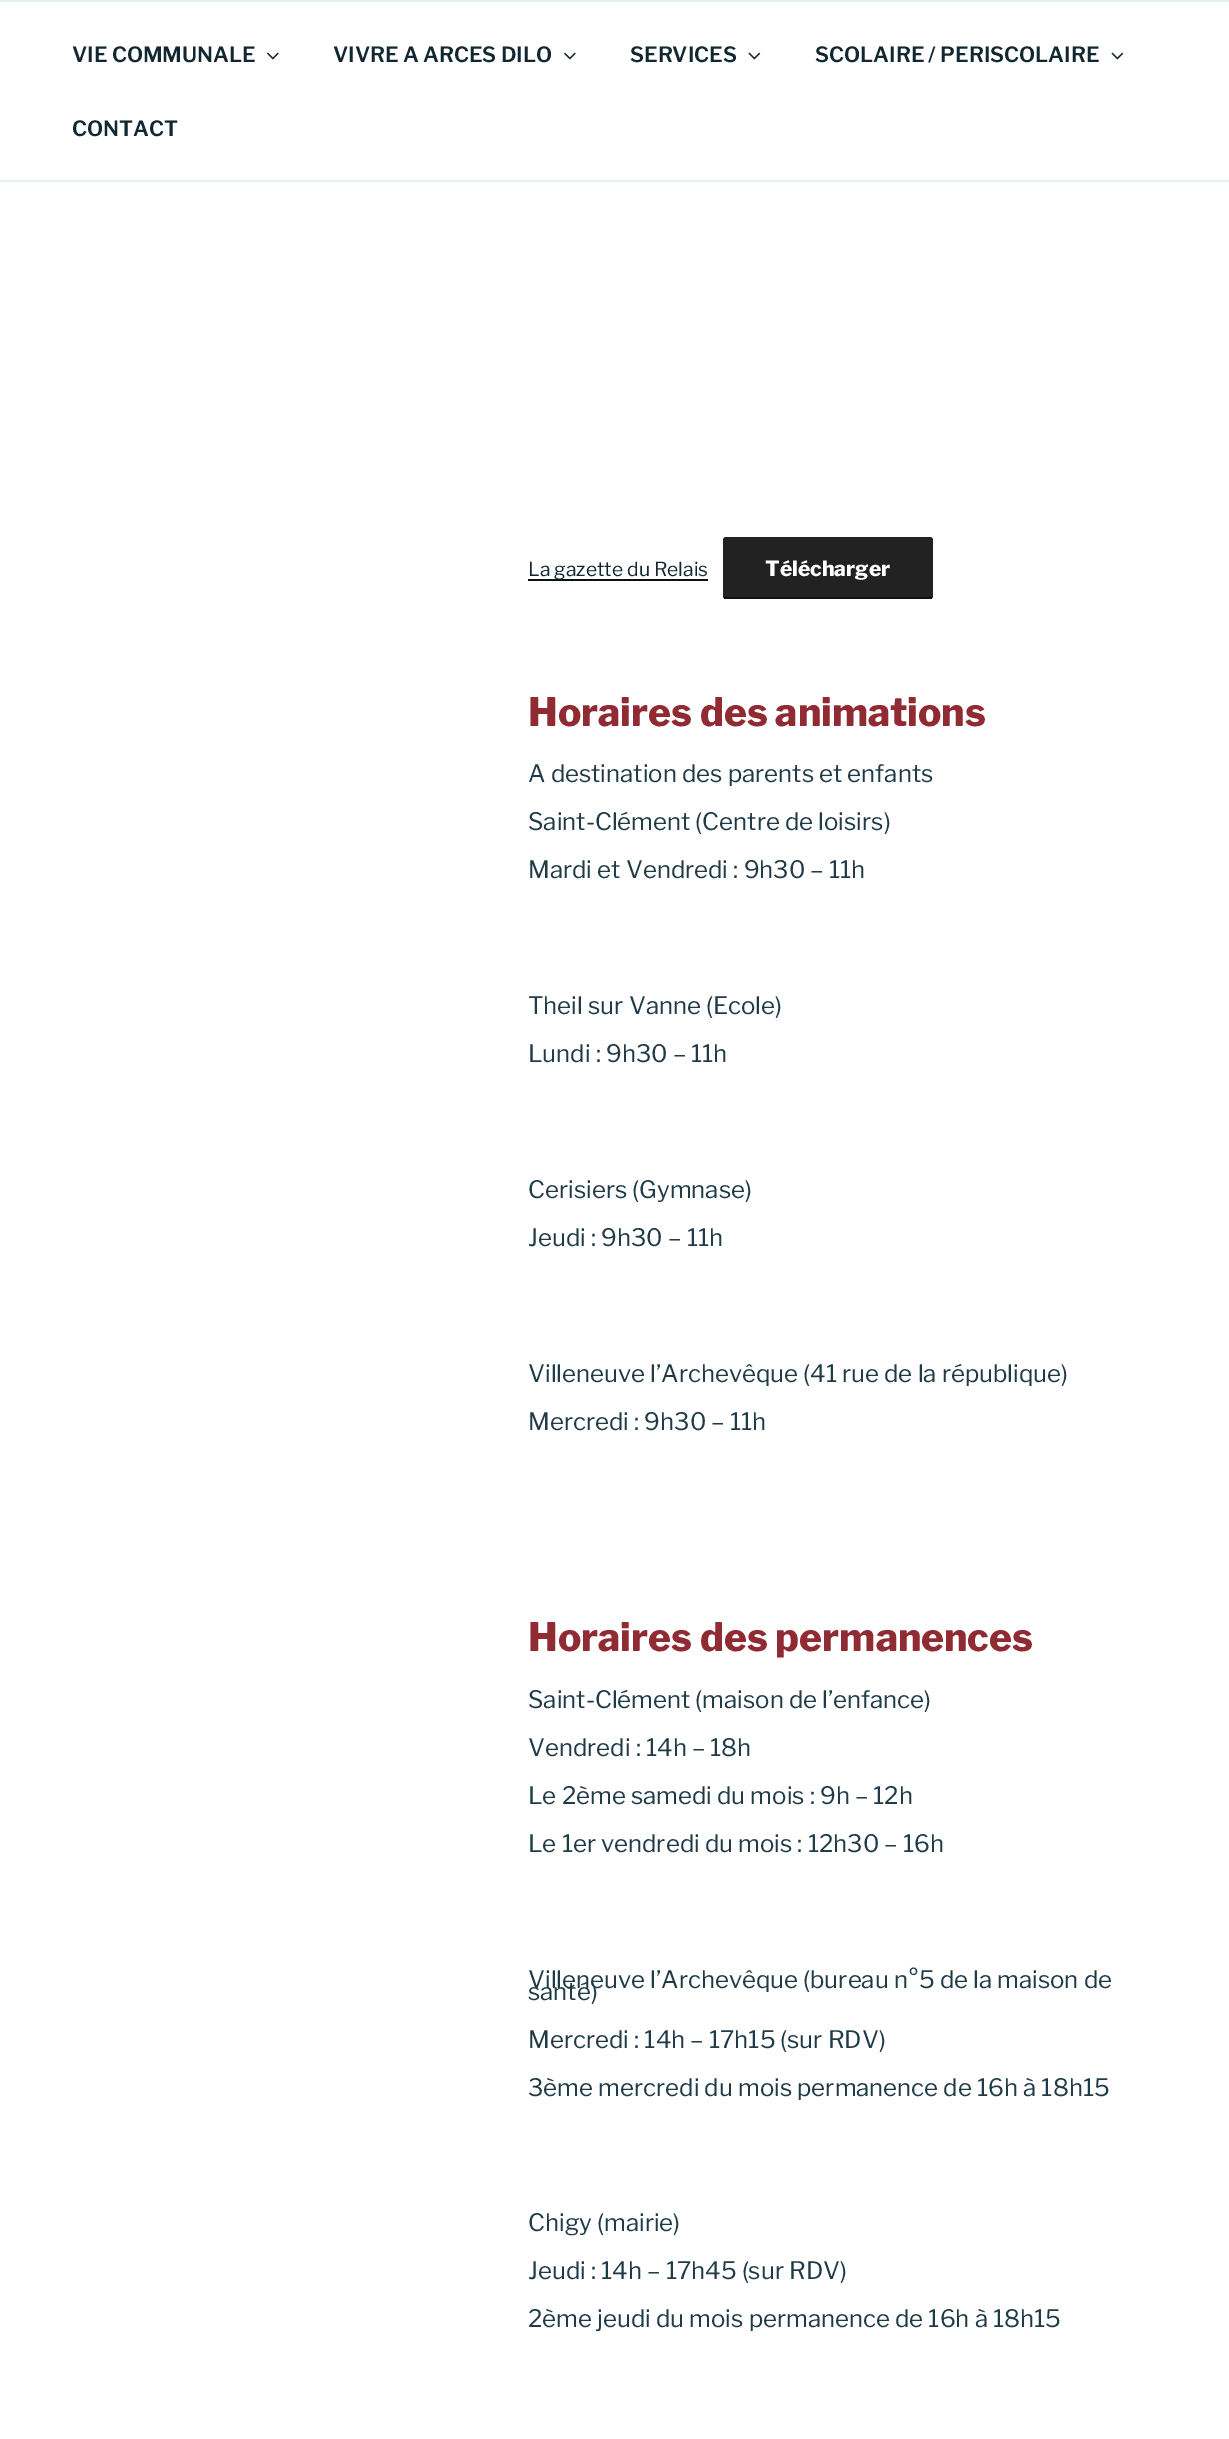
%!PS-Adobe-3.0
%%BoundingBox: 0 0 1229 2439
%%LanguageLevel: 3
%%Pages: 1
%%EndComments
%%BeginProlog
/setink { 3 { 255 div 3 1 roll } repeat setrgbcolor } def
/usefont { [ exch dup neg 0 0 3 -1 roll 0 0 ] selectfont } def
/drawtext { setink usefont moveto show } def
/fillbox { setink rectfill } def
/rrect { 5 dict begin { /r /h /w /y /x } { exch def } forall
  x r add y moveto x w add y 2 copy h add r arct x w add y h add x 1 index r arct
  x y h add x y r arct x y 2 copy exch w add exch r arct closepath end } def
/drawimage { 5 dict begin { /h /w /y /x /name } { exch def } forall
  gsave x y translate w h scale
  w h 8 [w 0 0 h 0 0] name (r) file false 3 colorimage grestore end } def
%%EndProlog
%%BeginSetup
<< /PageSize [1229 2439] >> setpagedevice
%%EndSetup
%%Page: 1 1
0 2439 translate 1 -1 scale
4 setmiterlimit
0 0 1229 2439 255 255 255 fillbox
0 0 1229 2 228 241 246 fillbox
0 180 1229 2 228 241 246 fillbox
(VIE COMMUNALE) 72 62 /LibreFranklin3-Thin 21 17 40 50 drawtext
(assets/img1.rgb) 267 52 12 8 drawimage
(VIVRE A ARCES DILO) 333 62 /LibreFranklin3-Thin 21 17 40 50 drawtext
(assets/img1.rgb) 564 52 12 8 drawimage
(SERVICES) 630 62 /LibreFranklin3-Thin 21 17 40 50 drawtext
(assets/img2.rgb) 748 52 13 8 drawimage
(SCOLAIRE / PERISCOLAIRE) 815 62 /LibreFranklin3-Thin 21 17 40 50 drawtext
(assets/img2.rgb) 1111 52 13 8 drawimage
(CONTACT) 72 136 /LibreFranklin3-Thin 21 17 40 50 drawtext
528 579 180 2 8 18 23 fillbox
(La gazette du Relais) 528 576 /LibreFranklin-Thin 19.25 17 40 50 drawtext
34 34 34 setink
723 537 210 62 3 rrect fill
8 18 23 setink
723 594 moveto 723 596 723 599 726 599 curveto 930 599 lineto 933 599 933 596 933 594 curveto 933 596 932 597 930 597 curveto 726 597 lineto 724 597 723 596 723 594 curveto closepath fill
(Télécharger) 765 576 /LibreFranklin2-Thin 21 255 255 255 drawtext
(Horaires des animations) 528 726 /LibreFranklin2-Thin 39 144 43 51 drawtext
(A destination des parents et enfants) 528 782 /LibreFranklin-Thin 24 31 59 71 drawtext
(Saint-Clément \(Centre de loisirs\)) 528 830 /LibreFranklin-Thin 24 31 59 71 drawtext
(Mardi et Vendredi : 9h30 – 11h) 528 878 /LibreFranklin-Thin 24 31 59 71 drawtext
(Theil sur Vanne \(Ecole\)) 528 1014 /LibreFranklin-Thin 24 31 59 71 drawtext
(Lundi : 9h30 – 11h) 528 1062 /LibreFranklin-Thin 24 31 59 71 drawtext
(Cerisiers \(Gymnase\)) 528 1198 /LibreFranklin-Thin 24 31 59 71 drawtext
(Jeudi : 9h30 – 11h) 528 1246 /LibreFranklin-Thin 24 31 59 71 drawtext
(Villeneuve l’Archevêque \(41 rue de la république\)) 528 1382 /LibreFranklin-Thin 24 31 59 71 drawtext
(Mercredi : 9h30 – 11h) 528 1430 /LibreFranklin-Thin 24 31 59 71 drawtext
(Horaires des permanences) 528 1651 /LibreFranklin2-Thin 39 144 43 51 drawtext
(Saint-Clément \(maison de l’enfance\)) 528 1708 /LibreFranklin-Thin 24 31 59 71 drawtext
(Vendredi : 14h – 18h) 528 1756 /LibreFranklin-Thin 24 31 59 71 drawtext
(Le 2ème samedi du mois : 9h – 12h) 528 1804 /LibreFranklin-Thin 24 31 59 71 drawtext
(Le 1er vendredi du mois : 12h30 – 16h) 528 1852 /LibreFranklin-Thin 24 31 59 71 drawtext
(Villeneuve l’Archevêque \(bureau n°5 de la maison de) 528 1988 /LibreFranklin-Thin 24 31 59 71 drawtext
(santé\)) 528 2000 /LibreFranklin-Thin 24 31 59 71 drawtext
(Mercredi : 14h – 17h15 \(sur RDV\)) 528 2048 /LibreFranklin-Thin 24 31 59 71 drawtext
(3ème mercredi du mois permanence de 16h à 18h15) 528 2096 /LibreFranklin-Thin 24 31 59 71 drawtext
(Chigy \(mairie\)) 528 2231 /LibreFranklin-Thin 24 31 59 71 drawtext
(Jeudi : 14h – 17h45 \(sur RDV\)) 528 2279 /LibreFranklin-Thin 24 31 59 71 drawtext
(2ème jeudi du mois permanence de 16h à 18h15) 528 2327 /LibreFranklin-Thin 24 31 59 71 drawtext
showpage
%%EOF
